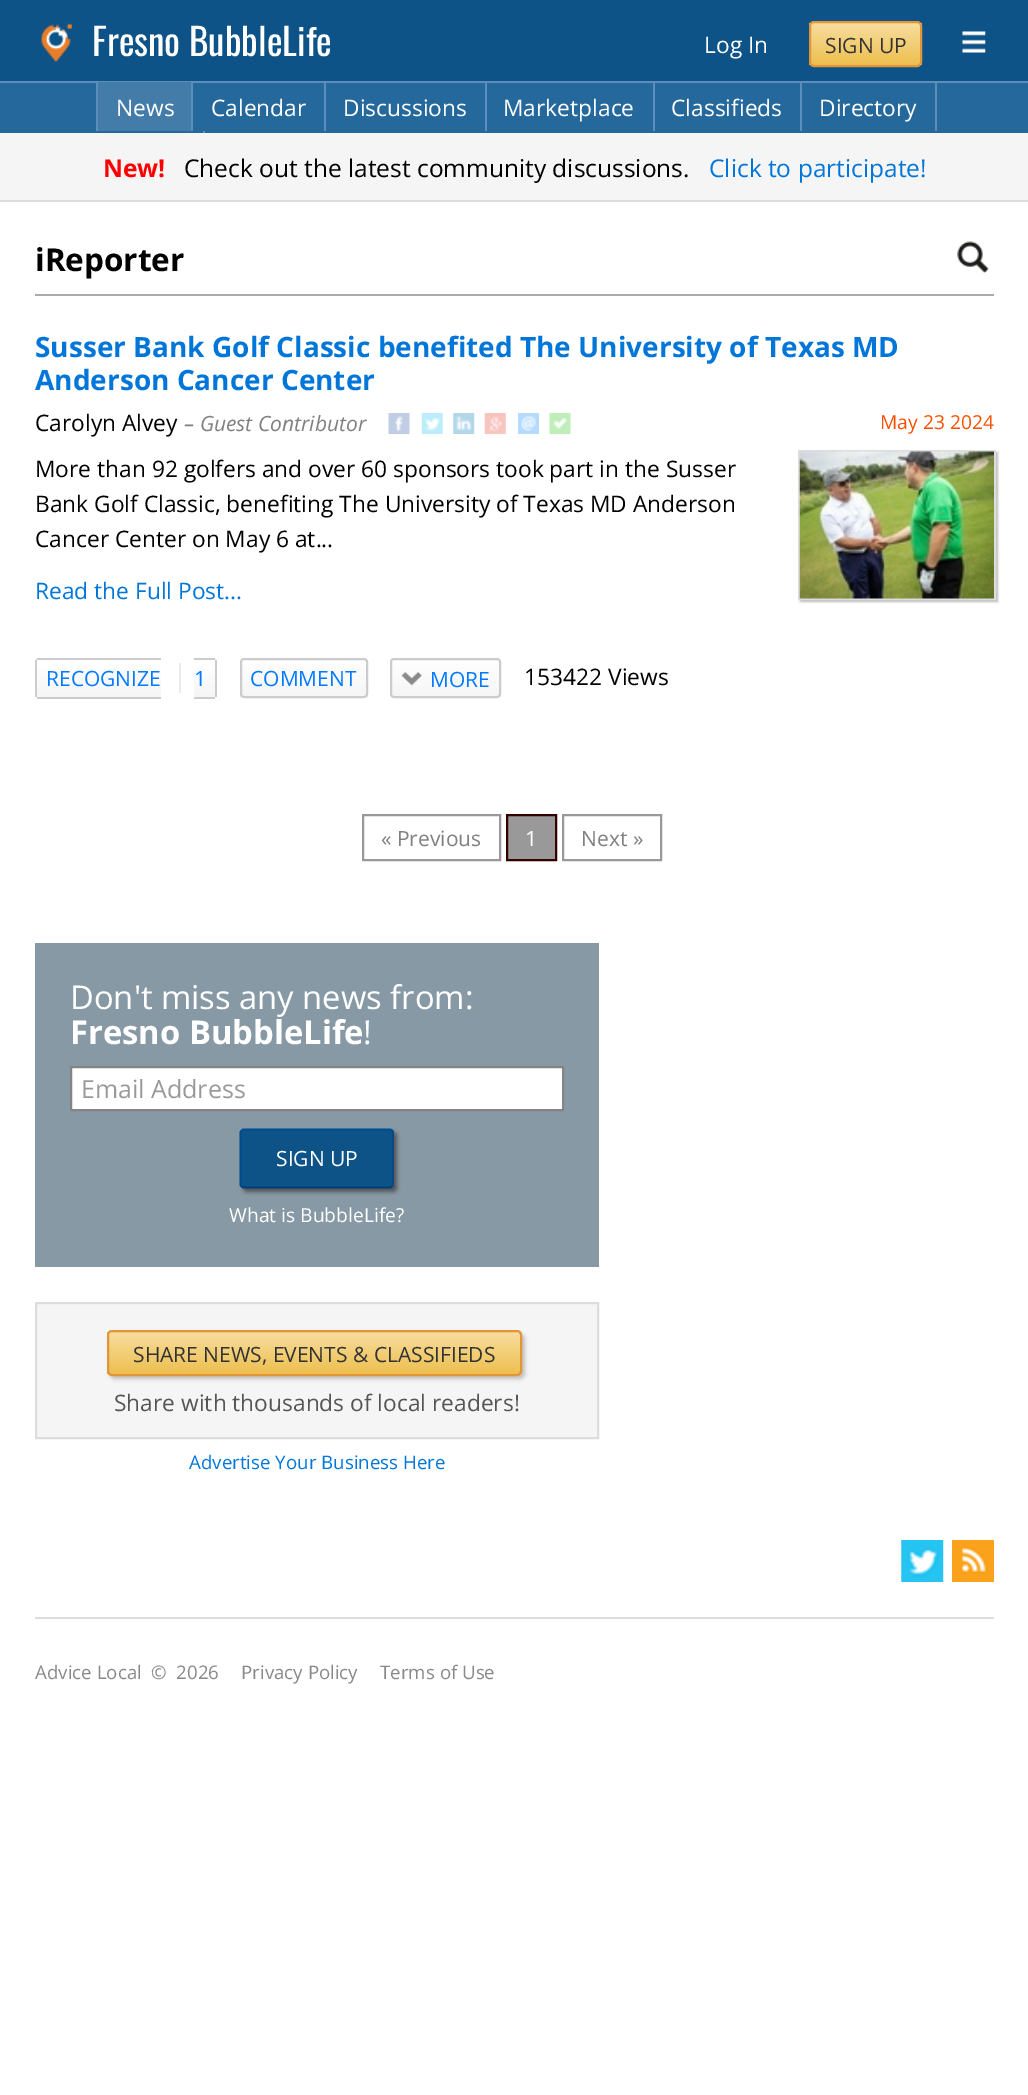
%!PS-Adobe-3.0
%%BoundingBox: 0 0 1028 2095
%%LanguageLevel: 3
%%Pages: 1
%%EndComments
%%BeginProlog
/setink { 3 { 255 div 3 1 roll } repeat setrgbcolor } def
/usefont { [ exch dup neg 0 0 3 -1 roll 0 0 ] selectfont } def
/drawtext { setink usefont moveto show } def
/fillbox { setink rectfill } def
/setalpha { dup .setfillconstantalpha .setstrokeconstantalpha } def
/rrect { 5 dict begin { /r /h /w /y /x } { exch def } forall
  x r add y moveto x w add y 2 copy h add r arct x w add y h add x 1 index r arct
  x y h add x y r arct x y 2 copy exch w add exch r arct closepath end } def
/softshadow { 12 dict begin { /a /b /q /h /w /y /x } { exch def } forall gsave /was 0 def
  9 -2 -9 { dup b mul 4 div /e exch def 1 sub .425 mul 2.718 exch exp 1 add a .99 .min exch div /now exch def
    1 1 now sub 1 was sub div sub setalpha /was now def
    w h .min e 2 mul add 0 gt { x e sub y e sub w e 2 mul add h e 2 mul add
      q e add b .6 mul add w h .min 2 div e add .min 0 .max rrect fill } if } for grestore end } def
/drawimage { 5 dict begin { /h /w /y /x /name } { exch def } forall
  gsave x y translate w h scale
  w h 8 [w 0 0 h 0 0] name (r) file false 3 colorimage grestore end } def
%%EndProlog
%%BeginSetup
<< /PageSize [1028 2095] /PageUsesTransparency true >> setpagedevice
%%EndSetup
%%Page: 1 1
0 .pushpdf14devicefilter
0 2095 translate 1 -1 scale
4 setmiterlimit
0 0 1028 2095 255 255 255 fillbox
0 0 1028 81 14 83 136 fillbox
(assets/img1.rgb) 41 23 31 39 drawimage
(Fresno BubbleLife) 92 56 /Oswald-Regular 37.25 255 255 255 drawtext
(Log In) 704 53 /OpenSans-Regular 22.75 255 255 255 drawtext
gsave
809 21 113 46 5 rrect clip newpath
gsave 809 23 moveto 922 23 lineto 922 65 lineto 809 65 lineto closepath clip newpath
<< /ShadingType 2 /ColorSpace /DeviceRGB /Coords [865 23 865 65] /Extend [true true] /Function << /FunctionType 2 /Domain [0 1] /C0 [0.969 0.867 0.62] /C1 [0.929 0.749 0.31] /N 1 >> >> shfill grestore
grestore
223 149 56 setink
2 setlinewidth
810 22 111 44 4 rrect stroke
(SIGN UP) 825 53 /OpenSans-Regular 21 51 51 51 drawtext
(assets/img2.rgb) 962 31 24 22 drawimage
0 83 1028 50 37 105 156 fillbox
0 81 1028 2 91 142 186 fillbox
98 82 93 49 67 124 168 fillbox
191 82 2 49 91 142 186 fillbox
96 82 2 49 91 142 186 fillbox
(News) 116 116 /OpenSans-Regular 22.75 255 255 255 drawtext
324 82 2 49 91 142 186 fillbox
(Calendar) 211 116 /OpenSans-Regular 22.75 255 255 255 drawtext
485 82 2 49 91 142 186 fillbox
(Discussions) 343 116 /OpenSans-Regular 22.75 255 255 255 drawtext
653 82 2 49 91 142 186 fillbox
(Marketplace) 503 116 /OpenSans-Regular 22.75 255 255 255 drawtext
800 82 2 49 91 142 186 fillbox
(Classifieds) 671 116 /OpenSans-Regular 22.75 255 255 255 drawtext
935 82 2 49 91 142 186 fillbox
(Directory) 819 116 /OpenSans-Regular 22.75 255 255 255 drawtext
203 131 2 2 91 142 186 fillbox
0 133 1028 67 245 245 245 fillbox
0 200 1028 2 221 221 221 fillbox
(New!) 103 177 /OpenSans-Bold 24.5 255 0 0 drawtext
(Check out the latest community discussions.) 184 177 /OpenSans-Regular 24.5 0 0 0 drawtext
(Click to participate!) 709 177 /OpenSans-Regular 24.5 1 118 217 drawtext
35 294 959 2 170 170 170 fillbox
(iReporter) 35 271 /OpenSans-Bold 31.5 0 0 0 drawtext
(assets/img3.rgb) 957 241 32 32 drawimage
(Susser Bank Golf Classic benefited The University of Texas MD) 35 357 /OpenSans-Bold 28 1 118 217 drawtext
(Anderson Cancer Center) 35 390 /OpenSans-Bold 28 1 118 217 drawtext
(Carolyn Alvey) 35 431 /OpenSans-Regular 22.75 0 0 0 drawtext
(– Guest Contributor) 184 431 /OpenSans-Italic 21 128 128 128 drawtext
(assets/img4.rgb) 388 413 22 21 drawimage
(assets/img5.rgb) 421 413 22 21 drawimage
(assets/img6.rgb) 453 413 22 21 drawimage
(assets/img7.rgb) 484 413 22 21 drawimage
(assets/img8.rgb) 518 413 21 21 drawimage
(assets/img9.rgb) 549 413 22 21 drawimage
(May 23 2024) 880 429 /OpenSans-Regular 19.25 248 80 0 drawtext
(More than 92 golfers and over 60 sponsors took part in the Susser) 35 477 /OpenSans-Regular 22.75 0 0 0 drawtext
(Bank Golf Classic, benefiting The University of Texas MD Anderson) 35 512 /OpenSans-Regular 22.75 0 0 0 drawtext
(Cancer Center on May 6 at...) 35 547 /OpenSans-Regular 22.75 0 0 0 drawtext
(Read the Full Post...) 35 599 /OpenSans-Regular 22.75 1 118 217 drawtext
187 187 187 setink
800 452 198 150 0 1 1 softshadow
221 221 221 setink
799 451 196 148 rectstroke
(assets/img10.rgb) 799 451 195 148 drawimage
gsave 37 669 moveto 161 669 lineto 161 697 lineto 37 697 lineto closepath clip newpath
<< /ShadingType 2 /ColorSpace /DeviceRGB /Coords [99 660 99 697] /Extend [true true] /Function << /FunctionType 2 /Domain [0 1] /C0 [1 1 1] /C1 [0.961 0.961 0.961] /N 1 >> >> shfill grestore
(RECOGNIZE) 46 686 /OpenSans-Regular 21 0 122 255 drawtext
gsave
39 658 moveto 161 658 lineto 161 698 lineto 39 698 lineto 37 698 35 696 35 694 curveto 35 662 lineto 35 660 37 658 39 658 curveto closepath clip newpath
gsave 35 658 moveto 37 658 lineto 37 660 lineto 35 660 lineto closepath clip newpath
<< /ShadingType 2 /ColorSpace /DeviceRGB /Coords [99 623 99 660] /Extend [true true] /Function << /FunctionType 2 /Domain [0 1] /C0 [1 1 1] /C1 [0.961 0.961 0.961] /N 1 >> >> shfill grestore
grestore
37 658 124 2 204 204 204 fillbox
37 697 124 2 204 204 204 fillbox
35 660 2 37 204 204 204 fillbox
gsave 194 669 moveto 215 669 lineto 215 697 lineto 194 697 lineto closepath clip newpath
<< /ShadingType 2 /ColorSpace /DeviceRGB /Coords [205 660 205 697] /Extend [true true] /Function << /FunctionType 2 /Domain [0 1] /C0 [1 1 1] /C1 [0.961 0.961 0.961] /N 1 >> >> shfill grestore
(1) 194 686 /OpenSans-Regular 21 0 122 255 drawtext
gsave
194 658 moveto 213 658 lineto 215 658 217 660 217 662 curveto 217 694 lineto 217 696 215 698 213 698 curveto 194 698 lineto closepath clip newpath
gsave 215 658 moveto 217 658 lineto 217 660 lineto 215 660 lineto closepath clip newpath
<< /ShadingType 2 /ColorSpace /DeviceRGB /Coords [205 623 205 660] /Extend [true true] /Function << /FunctionType 2 /Domain [0 1] /C0 [1 1 1] /C1 [0.961 0.961 0.961] /N 1 >> >> shfill grestore
grestore
194 658 21 2 204 204 204 fillbox
215 660 2 37 204 204 204 fillbox
194 697 21 2 204 204 204 fillbox
179 663 2 30 235 235 235 fillbox
gsave
240 658 128 40 4 rrect clip newpath
gsave 240 660 moveto 368 660 lineto 368 697 lineto 240 697 lineto closepath clip newpath
<< /ShadingType 2 /ColorSpace /DeviceRGB /Coords [304 660 304 697] /Extend [true true] /Function << /FunctionType 2 /Domain [0 1] /C0 [1 1 1] /C1 [0.961 0.961 0.961] /N 1 >> >> shfill grestore
grestore
204 204 204 setink
241 659 126 38 3 rrect stroke
(COMMENT) 250 686 /OpenSans-Regular 21 0 122 255 drawtext
gsave
390 658 111 40 4 rrect clip newpath
gsave 390 660 moveto 501 660 lineto 501 697 lineto 390 697 lineto closepath clip newpath
<< /ShadingType 2 /ColorSpace /DeviceRGB /Coords [445 660 445 697] /Extend [true true] /Function << /FunctionType 2 /Domain [0 1] /C0 [1 1 1] /C1 [0.961 0.961 0.961] /N 1 >> >> shfill grestore
grestore
204 204 204 setink
391 659 109 38 3 rrect stroke
(assets/img11.rgb) 401 672 21 14 drawimage
(MORE) 430 687 /OpenSans-Regular 21 0 122 255 drawtext
(153422 Views) 524 685 /OpenSans-Regular 22.75 0 0 0 drawtext
153 153 153 setink
363 815 137 45 rectstroke
(« Previous) 381 846 /OpenSans-Regular 21 128 128 128 drawtext
153 153 153 setink
507 815 moveto 556 815 lineto 556 860 lineto 507 860 lineto closepath gsave fill grestore
51 0 0 setink
stroke
(1) 525 846 /OpenSans-Regular 21 255 255 255 drawtext
153 153 153 setink
563 815 98 45 rectstroke
(Next ») 581 846 /OpenSans-Regular 21 128 128 128 drawtext
35 943 564 324 136 153 166 fillbox
(Don't miss any news from:) 70 1009 /OpenSans-Regular 32.75 255 255 255 drawtext
(Fresno BubbleLife) 70 1044 /OpenSans-Bold 32.75 255 255 255 drawtext
(!) 363 1044 /OpenSans-Regular 32.75 255 255 255 drawtext
71 1067 moveto 563 1067 lineto 563 1110 lineto 71 1110 lineto closepath gsave fill grestore
132 132 132 setink
stroke
(Email Address) 81 1098 /OpenSans-Regular 25 153 153 153 drawtext
85 85 85 setink
243 1132 154 60 4 2 1 softshadow
14 83 136 setink
240 1129 154 59 4 rrect fill
0 78 145 setink
1.8 setlinewidth
241.5 1130.5 moveto 243 1129.5 lineto 390 1129.5 lineto 392 1130.5 lineto stroke
1 75 139 setink
392 1130.5 moveto 393 1132 lineto 393 1185 lineto 392 1186.5 lineto stroke
0 65 120 setink
392 1186.5 moveto 390 1187.5 lineto 243 1187.5 lineto 241.5 1186.5 lineto stroke
1 75 139 setink
241.5 1186.5 moveto 240.5 1185 lineto 240.5 1132 lineto 241.5 1130.5 lineto stroke
(SIGN UP) 276 1166 /OpenSans-Regular 21 255 255 255 drawtext
(What is BubbleLife?) 229 1222 /OpenSans-Regular 19.25 255 255 255 drawtext
245 245 245 setink
36 1303 moveto 598 1303 lineto 598 1438 lineto 36 1438 lineto closepath gsave fill grestore
221 221 221 setink
2 setlinewidth
stroke
192 192 192 setink
110 1334 415 45 5 2 1 softshadow
gsave
107 1330 415 46 5 rrect clip newpath
gsave 107 1332 moveto 522 1332 lineto 522 1374 lineto 107 1374 lineto closepath clip newpath
<< /ShadingType 2 /ColorSpace /DeviceRGB /Coords [314 1332 314 1374] /Extend [true true] /Function << /FunctionType 2 /Domain [0 1] /C0 [0.969 0.867 0.62] /C1 [0.929 0.749 0.31] /N 1 >> >> shfill grestore
grestore
223 149 56 setink
108 1331 413 44 4 rrect stroke
(SHARE NEWS, EVENTS & CLASSIFIEDS) 133 1362 /OpenSans-Regular 21 51 51 51 drawtext
(Share with thousands of local readers!) 114 1411 /OpenSans-Regular 22.75 85 85 85 drawtext
(Advertise Your Business Here) 189 1469 /OpenSans-Regular 18.7 1 118 217 drawtext
(assets/img12.rgb) 901 1540 43 42 drawimage
(assets/img13.rgb) 952 1540 42 42 drawimage
35 1617 959 2 221 221 221 fillbox
(Advice Local) 35 1679 /OpenSans-Regular 18.7 136 136 136 drawtext
(©  2026) 151 1679 /OpenSans-Regular 18.7 136 136 136 drawtext
(Privacy Policy) 241 1679 /OpenSans-Regular 18.7 136 136 136 drawtext
(Terms of Use) 380 1679 /OpenSans-Regular 18.7 136 136 136 drawtext
.poppdf14devicefilter showpage
%%EOF
